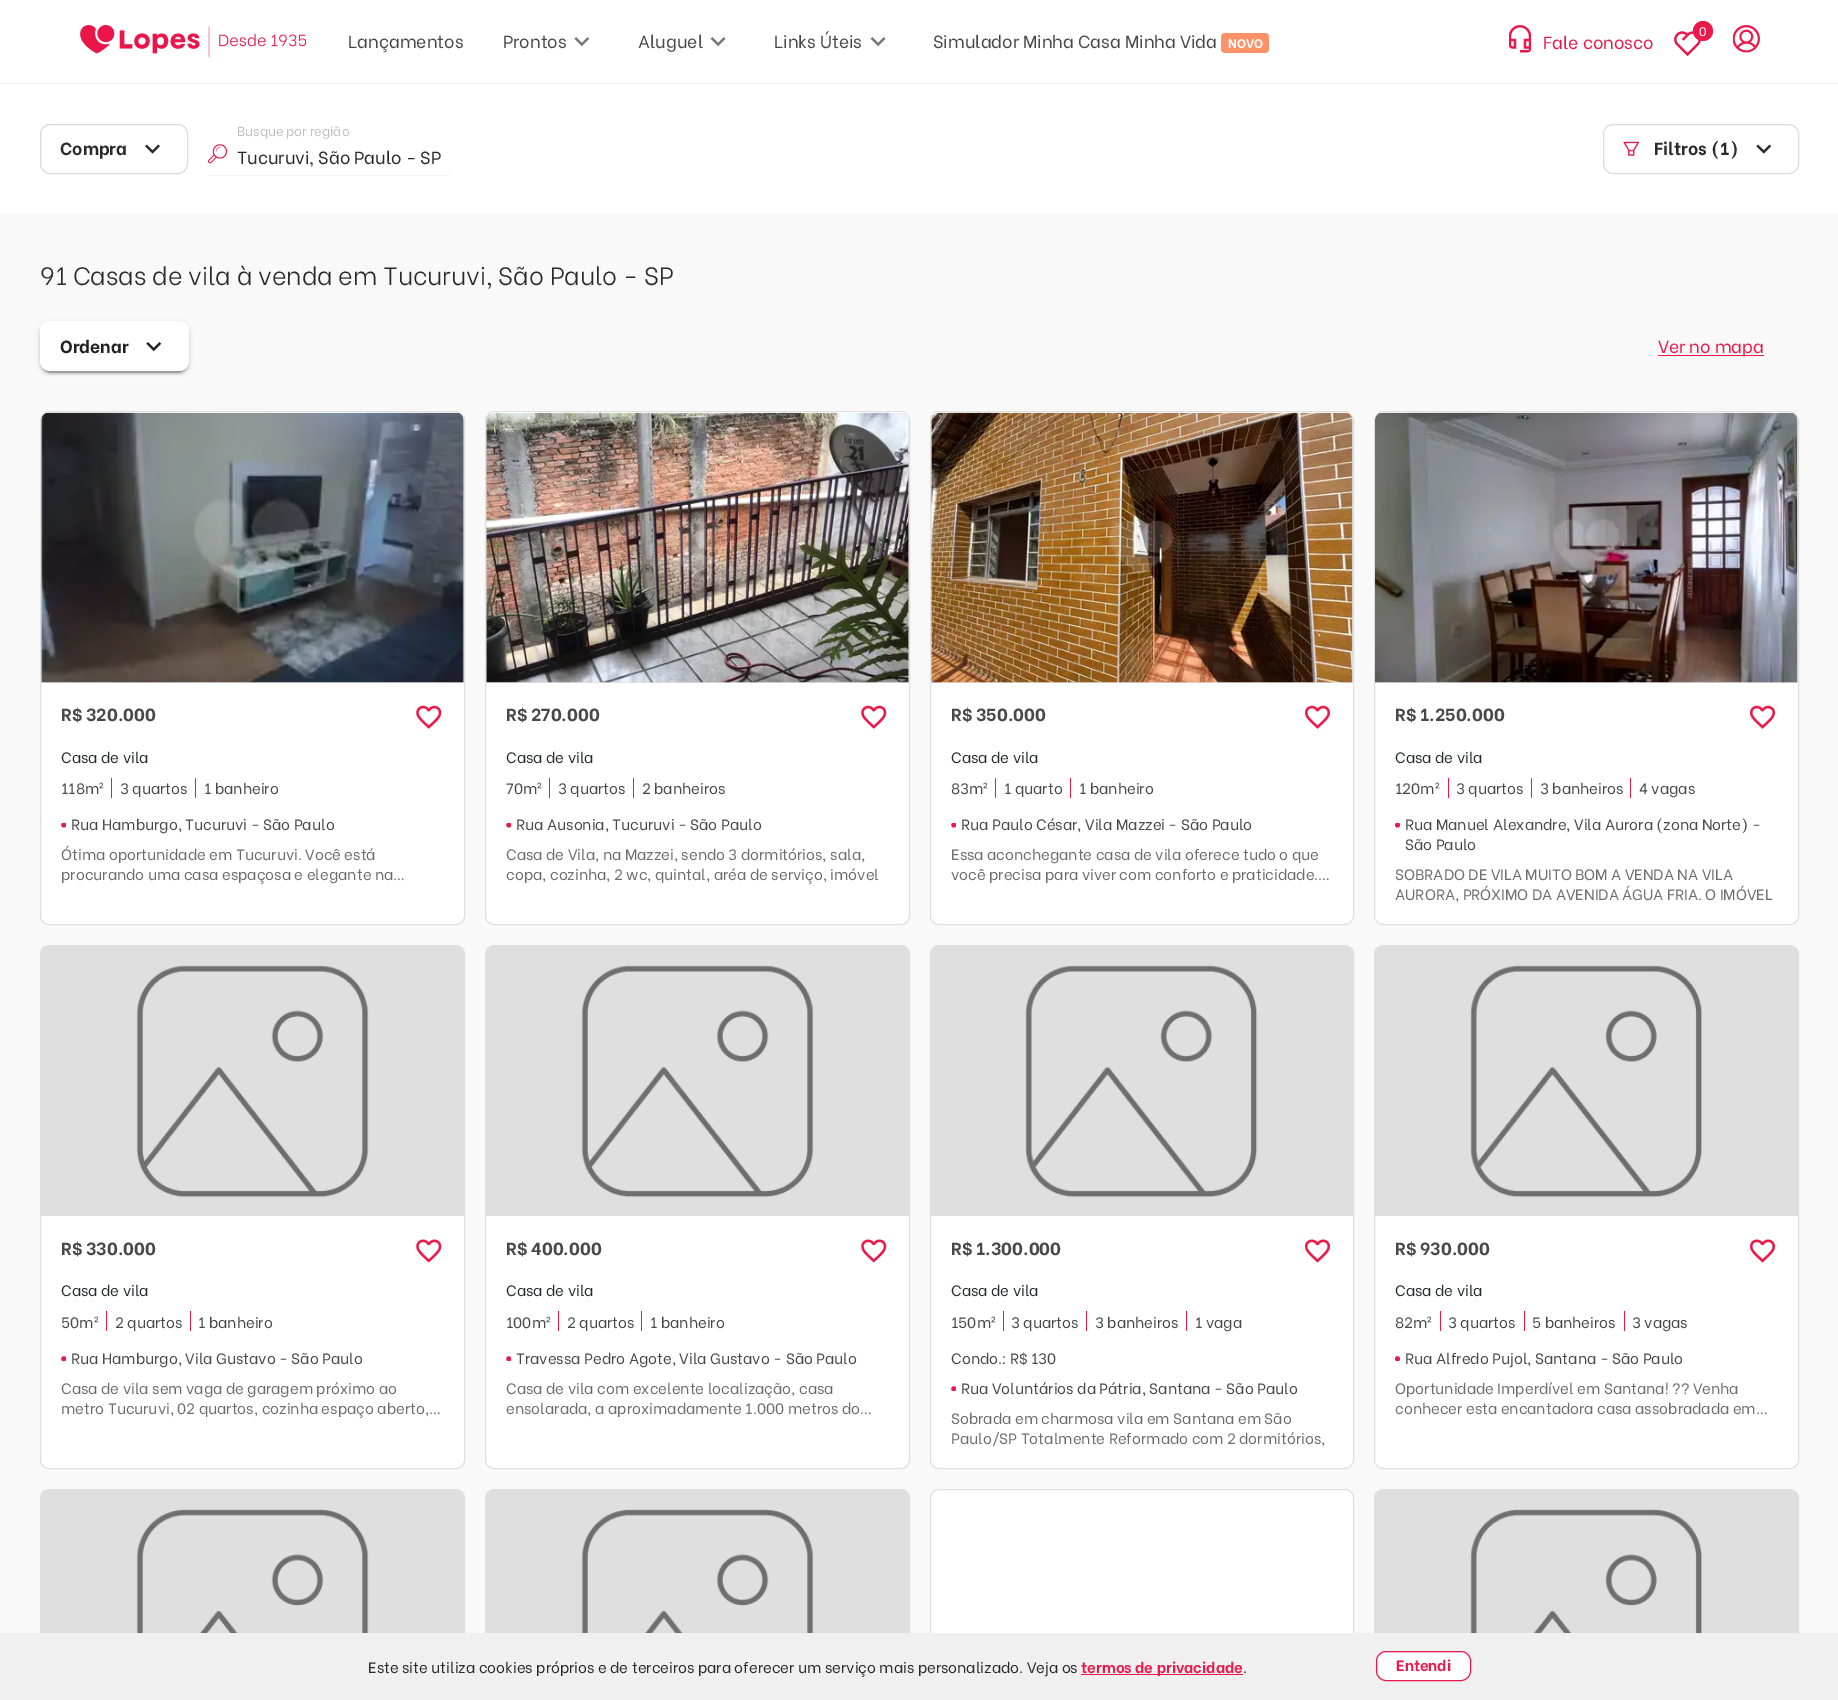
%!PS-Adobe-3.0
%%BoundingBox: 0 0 1838 1700
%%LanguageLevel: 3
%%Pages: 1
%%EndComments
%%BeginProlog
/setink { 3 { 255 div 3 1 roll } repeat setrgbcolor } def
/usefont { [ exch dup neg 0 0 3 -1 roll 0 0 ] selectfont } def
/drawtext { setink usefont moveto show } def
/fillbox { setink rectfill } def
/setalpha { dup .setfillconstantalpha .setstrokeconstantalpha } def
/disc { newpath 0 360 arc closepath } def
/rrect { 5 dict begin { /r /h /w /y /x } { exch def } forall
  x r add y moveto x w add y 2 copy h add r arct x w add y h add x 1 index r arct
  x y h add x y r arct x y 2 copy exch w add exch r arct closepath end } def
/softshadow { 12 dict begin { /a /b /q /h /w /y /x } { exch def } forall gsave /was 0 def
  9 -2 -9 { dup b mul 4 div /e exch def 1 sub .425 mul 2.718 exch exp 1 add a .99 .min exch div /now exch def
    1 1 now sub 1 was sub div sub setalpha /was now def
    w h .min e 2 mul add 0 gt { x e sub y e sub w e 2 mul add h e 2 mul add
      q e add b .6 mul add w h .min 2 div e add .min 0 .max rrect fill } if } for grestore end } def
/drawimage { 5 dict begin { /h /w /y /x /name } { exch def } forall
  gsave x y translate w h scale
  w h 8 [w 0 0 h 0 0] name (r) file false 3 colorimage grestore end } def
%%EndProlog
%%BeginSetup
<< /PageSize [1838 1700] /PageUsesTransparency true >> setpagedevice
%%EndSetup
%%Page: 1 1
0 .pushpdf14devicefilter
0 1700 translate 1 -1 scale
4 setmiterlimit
0 0 1838 1700 255 255 255 fillbox
0 83 1838 1 242 242 242 fillbox
(assets/img1.rgb) 80 25 227 33 drawimage
(Lançamentos) 348 48 /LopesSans-Regular 17.5 72 72 72 drawtext
(Prontos) 503 48 /LopesSans-Regular 17.5 72 72 72 drawtext
(assets/img2.rgb) 574 37 16 10 drawimage
(Aluguel) 638 48 /LopesSans-Regular 17.5 72 72 72 drawtext
(assets/img3.rgb) 710 37 16 10 drawimage
(Links Úteis) 774 48 /LopesSans-Regular 17.5 72 72 72 drawtext
(assets/img3.rgb) 870 37 16 10 drawimage
(Simulador Minha Casa Minha Vida) 933 48 /LopesSans-Regular 17.5 72 72 72 drawtext
255 145 105 setink
1221 33 48 20 4 rrect fill
(NOVO) 1228 48 /LopesSans-Bold 12.5 255 255 255 drawtext
(assets/img4.rgb) 1509 25 22 28 drawimage
(Fale conosco) 1543 49 /LopesSans-Regular 17.5 235 25 75 drawtext
(assets/img5.rgb) 1674 31 27 25 drawimage
1703 31 10 disc fill
(0) 1699 36 /LopesSans-Regular 12.5 255 255 255 drawtext
(assets/img6.rgb) 1733 25 27 28 drawimage
219 219 219 setink
40.5 124.5 147 49 9.5 rrect stroke
(Compra) 60 155 /LopesSans-Bold 17.5 42 42 42 drawtext
(assets/img7.rgb) 145 144 15 10 drawimage
(assets/img8.rgb) 208 144 20 20 drawimage
(Busque por região) 237 136 /LopesSans-Regular 13.1 191 191 191 drawtext
(Tucuruvi, São Paulo - SP) 237 164 /LopesSans-Regular 17.5 42 42 42 drawtext
208 175 242 1 242 242 242 fillbox
219 219 219 setink
1603.5 124.5 195 49 9.5 rrect stroke
(assets/img9.rgb) 1623 141 16 15 drawimage
(Filtros \(1\)) 1654 155 /LopesSans-Bold 17.5 42 42 42 drawtext
(assets/img10.rgb) 1756 144 16 10 drawimage
0 214 1838 1419 249 249 249 fillbox
(91 Casas de vila à venda em Tucuruvi, São Paulo - SP) 40 285 /LopesSans-Light 25 42 42 42 drawtext
0 0 0 setink
40 323 149 50 10 3 0.12 softshadow
40 324 149 50 10 1 0.14 softshadow
43 328 143 45 8 0.5 0.2 softshadow
255 255 255 setink
40 321 149 50 10 rrect fill
(Ordenar) 60 353 /LopesSans-Bold 17.5 33 33 33 drawtext
(assets/img11.rgb) 146 342 16 10 drawimage
1658 355 106 1 235 25 75 fillbox
(Ver no mapa) 1658 353 /LopesSans-Regular 17.5 235 25 75 drawtext
255 255 255 setink
40.5 411.5 424 513 8.5 rrect gsave fill grestore
223 223 223 setink
stroke
49 413 moveto 456 413 lineto 460.5 413 464 416.5 464 421 curveto 464 683 lineto 41 683 lineto 41 421 lineto 41 416.5 44.5 413 49 413 curveto closepath fill
(assets/img12.rgb) 41 412 423 271 drawimage
(R$ 320.000) 61 721 /LopesSans-Bold 17.5 72 72 72 drawtext
(assets/img13.rgb) 416 705 26 24 drawimage
(Casa de vila) 61 763 /LopesSans-Regular 15 36 47 45 drawtext
111 778 1 20 235 25 75 fillbox
(118m²) 61 794 /LopesSans-Regular 15 72 72 72 drawtext
195 778 1 20 235 25 75 fillbox
(3 quartos) 120 794 /LopesSans-Regular 15 72 72 72 drawtext
(1 banheiro) 204 794 /LopesSans-Regular 15 72 72 72 drawtext
gsave
61 823 5 5 rectclip
235 25 75 setink
63.8 825 2.5 disc fill
grestore
(Rua Hamburgo, Tucuruvi - São Paulo) 71 830 /LopesSans-Regular 15 72 72 72 drawtext
(Ótima oportunidade em Tucuruvi. Você está) 61 860 /LopesSans-Regular 15 109 109 109 drawtext
(procurando uma casa espaçosa e elegante na…) 61 880 /LopesSans-Regular 15 109 109 109 drawtext
255 255 255 setink
485.5 411.5 424 513 8.5 rrect gsave fill grestore
223 223 223 setink
stroke
494 413 moveto 901 413 lineto 905.5 413 909 416.5 909 421 curveto 909 683 lineto 486 683 lineto 486 421 lineto 486 416.5 489.5 413 494 413 curveto closepath fill
(assets/img14.rgb) 486 412 423 271 drawimage
(R$ 270.000) 506 721 /LopesSans-Bold 17.5 72 72 72 drawtext
(assets/img13.rgb) 861 705 26 24 drawimage
(Casa de vila) 506 763 /LopesSans-Regular 15 36 47 45 drawtext
549 778 1 20 235 25 75 fillbox
(70m²) 506 794 /LopesSans-Regular 15 72 72 72 drawtext
633 778 1 20 235 25 75 fillbox
(3 quartos) 558 794 /LopesSans-Regular 15 72 72 72 drawtext
(2 banheiros) 642 794 /LopesSans-Regular 15 72 72 72 drawtext
gsave
506 823 5 5 rectclip
235 25 75 setink
508.8 825 2.5 disc fill
grestore
(Rua Ausonia, Tucuruvi - São Paulo) 516 830 /LopesSans-Regular 15 72 72 72 drawtext
(Casa de Vila, na Mazzei, sendo 3 dormitórios, sala,) 506 860 /LopesSans-Regular 15 109 109 109 drawtext
(copa, cozinha, 2 wc, quintal, aréa de serviço, imóvel) 506 880 /LopesSans-Regular 15 109 109 109 drawtext
255 255 255 setink
930.5 411.5 423 513 8.5 rrect gsave fill grestore
223 223 223 setink
stroke
939 413 moveto 1345 413 lineto 1349.5 413 1353 416.5 1353 421 curveto 1353 683 lineto 931 683 lineto 931 421 lineto 931 416.5 934.5 413 939 413 curveto closepath fill
(assets/img15.rgb) 931 412 422 271 drawimage
(R$ 350.000) 951 721 /LopesSans-Bold 17.5 72 72 72 drawtext
(assets/img16.rgb) 1304 705 27 24 drawimage
(Casa de vila) 951 763 /LopesSans-Regular 15 36 47 45 drawtext
995 778 1 20 235 25 75 fillbox
(83m²) 951 794 /LopesSans-Regular 15 72 72 72 drawtext
1070 778 1 20 235 25 75 fillbox
(1 quarto) 1004 794 /LopesSans-Regular 15 72 72 72 drawtext
(1 banheiro) 1079 794 /LopesSans-Regular 15 72 72 72 drawtext
gsave
951 823 5 5 rectclip
235 25 75 setink
953.8 825 2.5 disc fill
grestore
(Rua Paulo César, Vila Mazzei - São Paulo) 961 830 /LopesSans-Regular 15 72 72 72 drawtext
(Essa aconchegante casa de vila oferece tudo o que) 951 860 /LopesSans-Regular 15 109 109 109 drawtext
(você precisa para viver com conforto e praticidade.…) 951 880 /LopesSans-Regular 15 109 109 109 drawtext
255 255 255 setink
1374.5 411.5 424 513 8.5 rrect gsave fill grestore
223 223 223 setink
stroke
1383 413 moveto 1790 413 lineto 1794.5 413 1798 416.5 1798 421 curveto 1798 683 lineto 1375 683 lineto 1375 421 lineto 1375 416.5 1378.5 413 1383 413 curveto closepath fill
(assets/img17.rgb) 1375 412 423 271 drawimage
(R$ 1.250.000) 1395 721 /LopesSans-Bold 17.5 72 72 72 drawtext
(assets/img16.rgb) 1749 705 27 24 drawimage
(Casa de vila) 1395 763 /LopesSans-Regular 15 36 47 45 drawtext
1448 778 1 20 235 25 75 fillbox
(120m²) 1395 794 /LopesSans-Regular 15 72 72 72 drawtext
1531 778 1 20 235 25 75 fillbox
(3 quartos) 1456 794 /LopesSans-Regular 15 72 72 72 drawtext
1630 778 1 20 235 25 75 fillbox
(3 banheiros) 1540 794 /LopesSans-Regular 15 72 72 72 drawtext
(4 vagas) 1639 794 /LopesSans-Regular 15 72 72 72 drawtext
gsave
1395 823 5 5 rectclip
235 25 75 setink
1397.5 825 2.5 disc fill
grestore
(Rua Manuel Alexandre, Vila Aurora \(zona Norte\) -) 1405 830 /LopesSans-Regular 15 72 72 72 drawtext
(São Paulo) 1405 850 /LopesSans-Regular 15 72 72 72 drawtext
(SOBRADO DE VILA MUITO BOM A VENDA NA VILA) 1395 880 /LopesSans-Regular 15 109 109 109 drawtext
(AURORA, PRÓXIMO DA AVENIDA ÁGUA FRIA. O IMÓVEL) 1395 900 /LopesSans-Regular 15 109 109 109 drawtext
255 255 255 setink
40.5 945.5 424 523 8.5 rrect gsave fill grestore
223 223 223 setink
stroke
49 946 moveto 456 946 lineto 460.5 946 464 949.5 464 954 curveto 464 1216 lineto 41 1216 lineto 41 954 lineto 41 949.5 44.5 946 49 946 curveto closepath fill
(assets/img18.rgb) 136 965 233 233 drawimage
(R$ 330.000) 61 1255 /LopesSans-Bold 17.5 72 72 72 drawtext
(assets/img19.rgb) 416 1239 26 24 drawimage
(Casa de vila) 61 1296 /LopesSans-Regular 15 36 47 45 drawtext
106 1311 1 20 235 25 75 fillbox
(50m²) 61 1328 /LopesSans-Regular 15 72 72 72 drawtext
190 1311 1 20 235 25 75 fillbox
(2 quartos) 115 1328 /LopesSans-Regular 15 72 72 72 drawtext
(1 banheiro) 198 1328 /LopesSans-Regular 15 72 72 72 drawtext
gsave
61 1356 5 5 rectclip
235 25 75 setink
63.8 1358.8 2.5 disc fill
grestore
(Rua Hamburgo, Vila Gustavo - São Paulo) 71 1364 /LopesSans-Regular 15 72 72 72 drawtext
(Casa de vila sem vaga de garagem próximo ao) 61 1394 /LopesSans-Regular 15 109 109 109 drawtext
(metro Tucuruvi, 02 quartos, cozinha espaço aberto,…) 61 1414 /LopesSans-Regular 15 109 109 109 drawtext
255 255 255 setink
485.5 945.5 424 523 8.5 rrect gsave fill grestore
223 223 223 setink
stroke
494 946 moveto 901 946 lineto 905.5 946 909 949.5 909 954 curveto 909 1216 lineto 486 1216 lineto 486 954 lineto 486 949.5 489.5 946 494 946 curveto closepath fill
(assets/img20.rgb) 581 965 233 233 drawimage
(R$ 400.000) 506 1255 /LopesSans-Bold 17.5 72 72 72 drawtext
(assets/img19.rgb) 861 1239 26 24 drawimage
(Casa de vila) 506 1296 /LopesSans-Regular 15 36 47 45 drawtext
558 1311 1 20 235 25 75 fillbox
(100m²) 506 1328 /LopesSans-Regular 15 72 72 72 drawtext
641 1311 1 20 235 25 75 fillbox
(2 quartos) 567 1328 /LopesSans-Regular 15 72 72 72 drawtext
(1 banheiro) 650 1328 /LopesSans-Regular 15 72 72 72 drawtext
gsave
506 1356 5 5 rectclip
235 25 75 setink
508.8 1358.8 2.5 disc fill
grestore
(Travessa Pedro Agote, Vila Gustavo - São Paulo) 516 1364 /LopesSans-Regular 15 72 72 72 drawtext
(Casa de vila com excelente localização, casa) 506 1394 /LopesSans-Regular 15 109 109 109 drawtext
(ensolarada, a aproximadamente 1.000 metros do…) 506 1414 /LopesSans-Regular 15 109 109 109 drawtext
255 255 255 setink
930.5 945.5 423 523 8.5 rrect gsave fill grestore
223 223 223 setink
stroke
939 946 moveto 1345 946 lineto 1349.5 946 1353 949.5 1353 954 curveto 1353 1216 lineto 931 1216 lineto 931 954 lineto 931 949.5 934.5 946 939 946 curveto closepath fill
(assets/img21.rgb) 1025 965 233 233 drawimage
(R$ 1.300.000) 951 1255 /LopesSans-Bold 17.5 72 72 72 drawtext
(assets/img22.rgb) 1304 1239 27 24 drawimage
(Casa de vila) 951 1296 /LopesSans-Regular 15 36 47 45 drawtext
1003 1311 1 20 235 25 75 fillbox
(150m²) 951 1328 /LopesSans-Regular 15 72 72 72 drawtext
1086 1311 1 20 235 25 75 fillbox
(3 quartos) 1011 1328 /LopesSans-Regular 15 72 72 72 drawtext
1186 1311 1 20 235 25 75 fillbox
(3 banheiros) 1095 1328 /LopesSans-Regular 15 72 72 72 drawtext
(1 vaga) 1195 1328 /LopesSans-Regular 15 72 72 72 drawtext
(Condo.: R$ 130) 951 1364 /LopesSans-Regular 15 72 72 72 drawtext
gsave
951 1386 5 5 rectclip
235 25 75 setink
953.8 1388.8 2.5 disc fill
grestore
(Rua Voluntários da Pátria, Santana - São Paulo) 961 1394 /LopesSans-Regular 15 72 72 72 drawtext
(Sobrada em charmosa vila em Santana em São) 951 1424 /LopesSans-Regular 15 109 109 109 drawtext
(Paulo/SP Totalmente Reformado com 2 dormitórios,) 951 1444 /LopesSans-Regular 15 109 109 109 drawtext
255 255 255 setink
1374.5 945.5 424 523 8.5 rrect gsave fill grestore
223 223 223 setink
stroke
1383 946 moveto 1790 946 lineto 1794.5 946 1798 949.5 1798 954 curveto 1798 1216 lineto 1375 1216 lineto 1375 954 lineto 1375 949.5 1378.5 946 1383 946 curveto closepath fill
(assets/img23.rgb) 1470 965 233 233 drawimage
(R$ 930.000) 1395 1255 /LopesSans-Bold 17.5 72 72 72 drawtext
(assets/img22.rgb) 1749 1239 27 24 drawimage
(Casa de vila) 1395 1296 /LopesSans-Regular 15 36 47 45 drawtext
1440 1311 1 20 235 25 75 fillbox
(82m²) 1395 1328 /LopesSans-Regular 15 72 72 72 drawtext
1524 1311 1 20 235 25 75 fillbox
(3 quartos) 1448 1328 /LopesSans-Regular 15 72 72 72 drawtext
1624 1311 1 20 235 25 75 fillbox
(5 banheiros) 1532 1328 /LopesSans-Regular 15 72 72 72 drawtext
(3 vagas) 1632 1328 /LopesSans-Regular 15 72 72 72 drawtext
gsave
1395 1356 5 5 rectclip
235 25 75 setink
1397.5 1358.8 2.5 disc fill
grestore
(Rua Alfredo Pujol, Santana - São Paulo) 1405 1364 /LopesSans-Regular 15 72 72 72 drawtext
(Oportunidade Imperdível em Santana! ?? Venha) 1395 1394 /LopesSans-Regular 15 109 109 109 drawtext
(conhecer esta encantadora casa assobradada em…) 1395 1414 /LopesSans-Regular 15 109 109 109 drawtext
223 223 223 setink
40.5 1489.5 424 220 8.5 rrect stroke
49 1490 moveto 456 1490 lineto 460.5 1490 464 1493.5 464 1498 curveto 464 1700 lineto 41 1700 lineto 41 1498 lineto 41 1493.5 44.5 1490 49 1490 curveto closepath fill
(assets/img24.rgb) 136 1509 233 124 drawimage
485.5 1489.5 424 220 8.5 rrect stroke
494 1490 moveto 901 1490 lineto 905.5 1490 909 1493.5 909 1498 curveto 909 1700 lineto 486 1700 lineto 486 1498 lineto 486 1493.5 489.5 1490 494 1490 curveto closepath fill
(assets/img24.rgb) 581 1509 233 124 drawimage
255 255 255 setink
939 1489 moveto 1345 1489 lineto 1350 1489 1354 1493 1354 1498 curveto 1354 1700 lineto 930 1700 lineto 930 1498 lineto 930 1493 934 1489 939 1489 curveto closepath fill
223 223 223 setink
930.5 1489.5 423 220 8.5 rrect stroke
1374.5 1489.5 424 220 8.5 rrect stroke
1383 1490 moveto 1790 1490 lineto 1794.5 1490 1798 1493.5 1798 1498 curveto 1798 1700 lineto 1375 1700 lineto 1375 1498 lineto 1375 1493.5 1378.5 1490 1383 1490 curveto closepath fill
(assets/img25.rgb) 1470 1509 233 124 drawimage
0 1633 1838 67 240 240 240 fillbox
(Este site utiliza cookies próprios e de terceiros para oferecer um serviço mais personalizado. Veja os) 368 1673 /LopesSans-Regular 15 42 42 42 drawtext
1081 1674 162 1 235 25 75 fillbox
(termos de privacidade) 1081 1673 /LopesSans-Bold 15 235 25 75 drawtext
(.) 1243 1673 /LopesSans-Regular 15 42 42 42 drawtext
255 255 255 setink
1376.5 1651.5 94 29 9.5 rrect gsave fill grestore
235 25 75 setink
stroke
(Entendi) 1396 1671 /LopesSans-Bold 15 235 25 75 drawtext
.poppdf14devicefilter showpage
%%EOF
